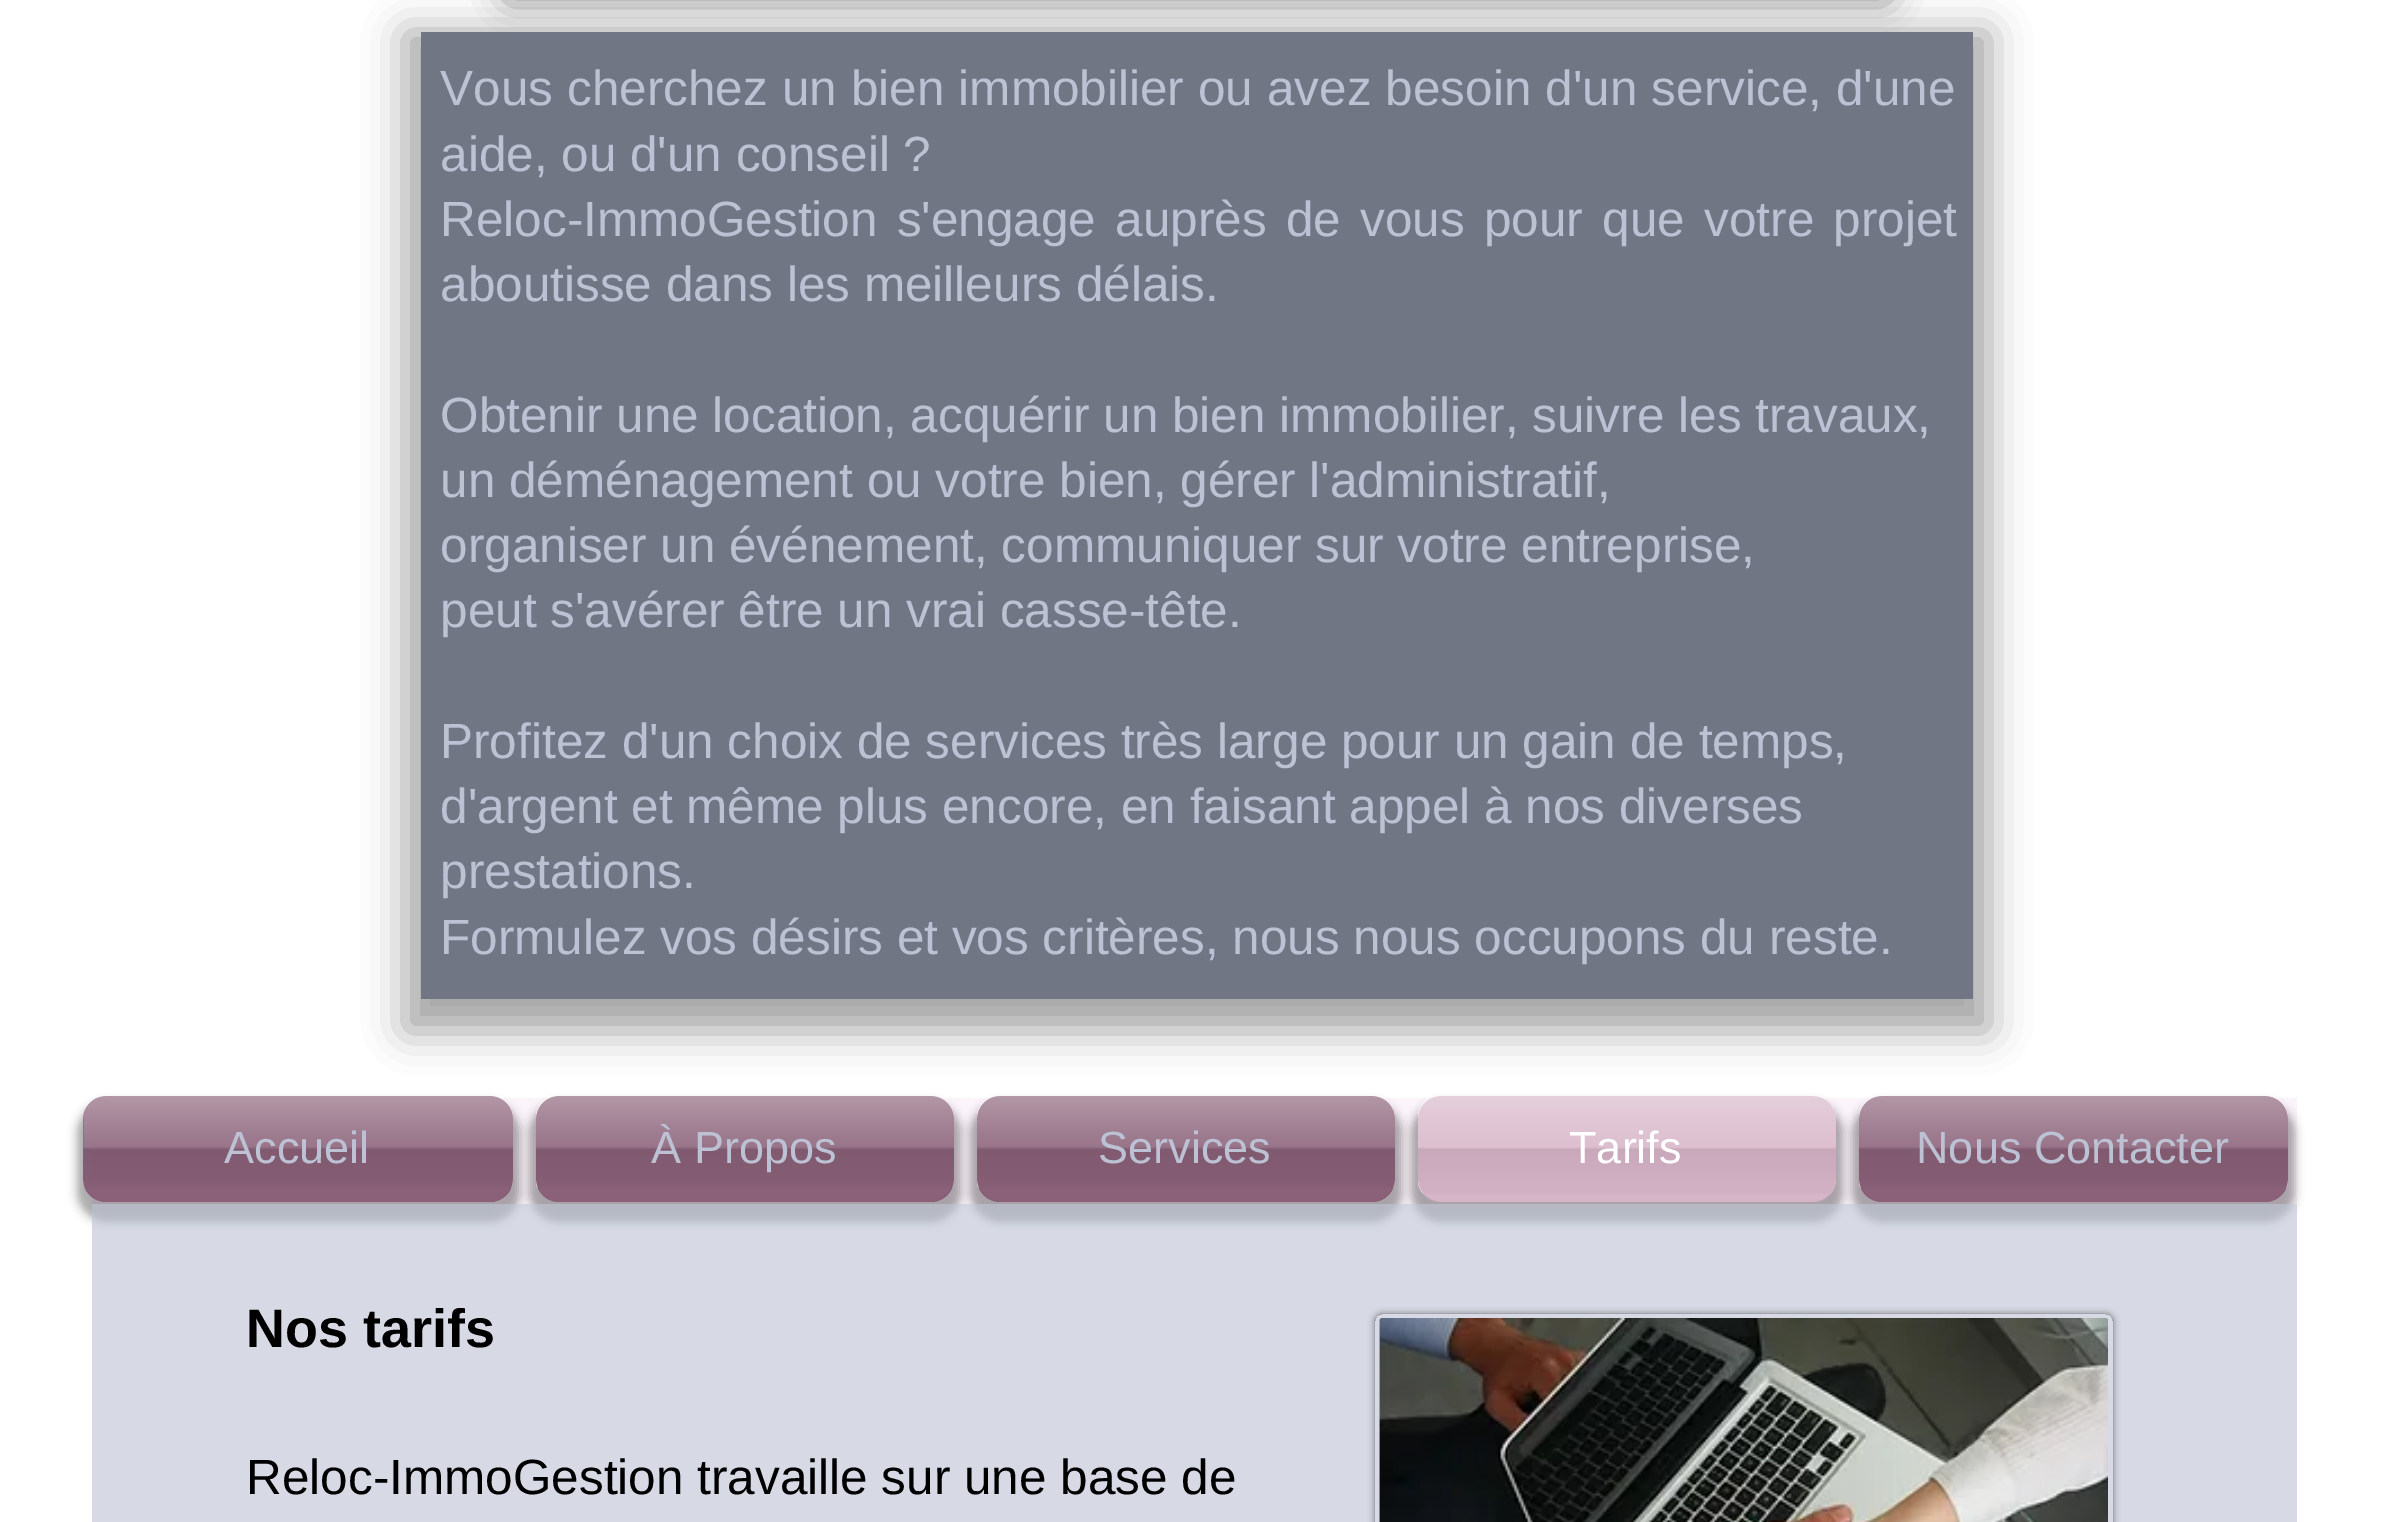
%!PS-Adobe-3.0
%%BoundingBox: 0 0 2387 1522
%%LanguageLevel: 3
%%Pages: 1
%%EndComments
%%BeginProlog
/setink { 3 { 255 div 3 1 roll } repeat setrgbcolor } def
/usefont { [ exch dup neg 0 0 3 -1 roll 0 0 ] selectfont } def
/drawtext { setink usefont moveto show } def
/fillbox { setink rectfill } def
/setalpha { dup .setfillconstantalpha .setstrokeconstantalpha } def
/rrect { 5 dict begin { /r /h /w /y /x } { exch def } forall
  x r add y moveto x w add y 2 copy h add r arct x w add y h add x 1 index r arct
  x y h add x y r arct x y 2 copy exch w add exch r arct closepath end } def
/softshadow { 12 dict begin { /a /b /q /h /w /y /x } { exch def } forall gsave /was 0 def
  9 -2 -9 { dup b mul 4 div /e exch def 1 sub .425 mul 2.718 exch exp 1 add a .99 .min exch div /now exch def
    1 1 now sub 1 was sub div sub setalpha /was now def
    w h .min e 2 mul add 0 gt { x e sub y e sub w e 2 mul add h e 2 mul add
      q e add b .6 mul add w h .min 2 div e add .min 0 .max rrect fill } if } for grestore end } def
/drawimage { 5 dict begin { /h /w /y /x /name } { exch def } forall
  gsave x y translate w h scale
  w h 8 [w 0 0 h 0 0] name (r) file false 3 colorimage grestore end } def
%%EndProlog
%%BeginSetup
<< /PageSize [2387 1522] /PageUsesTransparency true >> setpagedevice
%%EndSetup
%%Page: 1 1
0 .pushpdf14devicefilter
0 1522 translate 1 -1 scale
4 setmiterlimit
0 0 2387 1522 255 255 255 fillbox
gsave
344 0 moveto 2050 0 lineto 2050 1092 lineto 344 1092 lineto closepath 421 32 moveto 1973 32 lineto 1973 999 lineto 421 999 lineto closepath eoclip newpath
0 0 0 setink
405 32 1584 999 0 20 0.35 softshadow
grestore
0 0 0 setink
509 -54 1377 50 0 18 0.6 softshadow
0.92 setalpha
421 32 1552 967 101 106 123 fillbox
/LiberationSans-Regular 49.5 usefont
1 setalpha
188 194 211 setink
440 105 moveto 0.25 0 32 (Vous cherchez un bien immobilier ou avez besoin d'un service, d'une) widthshow
(aide, ou d'un conseil ?) 440 171 /LiberationSans-Regular 49.5 188 194 211 drawtext
440 236 moveto 5.5 0 32 (Reloc-ImmoGestion s'engage auprès de vous pour que votre projet) widthshow
(aboutisse dans les meilleurs délais.) 440 301 /LiberationSans-Regular 49.5 188 194 211 drawtext
(Obtenir une location, acquérir un bien immobilier, suivre les travaux,) 440 432 /LiberationSans-Regular 49.5 188 194 211 drawtext
(un déménagement ou votre bien, gérer l'administratif,) 440 497 /LiberationSans-Regular 49.5 188 194 211 drawtext
(organiser un événement, communiquer sur votre entreprise,) 440 562 /LiberationSans-Regular 49.5 188 194 211 drawtext
(peut s'avérer être un vrai casse-tête.) 440 627 /LiberationSans-Regular 49.5 188 194 211 drawtext
(Profitez d'un choix de services très large pour un gain de temps,) 440 758 /LiberationSans-Regular 49.5 188 194 211 drawtext
(d'argent et même plus encore, en faisant appel à nos diverses) 440 823 /LiberationSans-Regular 49.5 188 194 211 drawtext
(prestations.) 440 888 /LiberationSans-Regular 49.5 188 194 211 drawtext
(Formulez vos désirs et vos critères, nous nous occupons du reste.) 440 954 /LiberationSans-Regular 49.5 188 194 211 drawtext
92 1098 2205 106 252 244 251 fillbox
gsave
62 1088 moveto 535 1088 lineto 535 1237 lineto 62 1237 lineto closepath 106 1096 moveto 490 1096 lineto 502.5 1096 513 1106.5 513 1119 curveto 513 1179 lineto 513 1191.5 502.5 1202 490 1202 curveto 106 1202 lineto 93.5 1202 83 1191.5 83 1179 curveto 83 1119 lineto 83 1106.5 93.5 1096 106 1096 curveto closepath eoclip newpath
0 0 0 setink
77 1103 443 119 29 4.5 0.34 softshadow
grestore
0.92 setalpha
128 84 109 setink
83 1096 430 106 23 rrect fill
1 setalpha
(assets/img1.rgb) 83 1096 430 92 drawimage
(Accueil) 224 1163 /LiberationSans-Regular 45 188 194 211 drawtext
gsave
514 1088 moveto 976 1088 lineto 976 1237 lineto 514 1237 lineto closepath 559 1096 moveto 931 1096 lineto 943.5 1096 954 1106.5 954 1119 curveto 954 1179 lineto 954 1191.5 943.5 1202 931 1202 curveto 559 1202 lineto 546.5 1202 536 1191.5 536 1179 curveto 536 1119 lineto 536 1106.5 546.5 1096 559 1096 curveto closepath eoclip newpath
0 0 0 setink
529 1103 432 119 29 4.5 0.34 softshadow
grestore
0.92 setalpha
128 84 109 setink
536 1096 418 106 23 rrect fill
1 setalpha
(assets/img2.rgb) 536 1096 418 92 drawimage
(À Propos) 651 1163 /LiberationSans-Regular 45 188 194 211 drawtext
gsave
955 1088 moveto 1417 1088 lineto 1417 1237 lineto 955 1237 lineto closepath 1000 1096 moveto 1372 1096 lineto 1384.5 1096 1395 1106.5 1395 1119 curveto 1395 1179 lineto 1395 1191.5 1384.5 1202 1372 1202 curveto 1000 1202 lineto 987.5 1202 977 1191.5 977 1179 curveto 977 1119 lineto 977 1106.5 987.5 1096 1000 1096 curveto closepath eoclip newpath
0 0 0 setink
970 1103 432 119 29 4.5 0.34 softshadow
grestore
0.92 setalpha
128 84 109 setink
977 1096 418 106 23 rrect fill
1 setalpha
(assets/img2.rgb) 977 1096 418 92 drawimage
(Services) 1098 1163 /LiberationSans-Regular 45 188 194 211 drawtext
gsave
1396 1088 moveto 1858 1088 lineto 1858 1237 lineto 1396 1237 lineto closepath 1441 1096 moveto 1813 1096 lineto 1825.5 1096 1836 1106.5 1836 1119 curveto 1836 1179 lineto 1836 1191.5 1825.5 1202 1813 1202 curveto 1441 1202 lineto 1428.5 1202 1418 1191.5 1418 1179 curveto 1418 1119 lineto 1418 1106.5 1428.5 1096 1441 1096 curveto closepath eoclip newpath
0 0 0 setink
1411 1103 432 119 29 4.5 0.34 softshadow
grestore
0.92 setalpha
212 176 196 setink
1418 1096 418 106 23 rrect fill
1 setalpha
(assets/img3.rgb) 1418 1096 418 98 drawimage
(Tarifs) 1569 1163 /LiberationSans-Regular 45 255 255 255 drawtext
gsave
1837 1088 moveto 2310 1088 lineto 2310 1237 lineto 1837 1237 lineto closepath 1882 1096 moveto 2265 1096 lineto 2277.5 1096 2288 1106.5 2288 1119 curveto 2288 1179 lineto 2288 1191.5 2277.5 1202 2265 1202 curveto 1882 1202 lineto 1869.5 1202 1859 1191.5 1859 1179 curveto 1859 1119 lineto 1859 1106.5 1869.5 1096 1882 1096 curveto closepath eoclip newpath
0 0 0 setink
1852 1103 443 119 29 4.5 0.34 softshadow
grestore
0.92 setalpha
128 84 109 setink
1859 1096 429 106 23 rrect fill
1 setalpha
(assets/img4.rgb) 1859 1096 429 92 drawimage
(Nous Contacter) 1916 1163 /LiberationSans-Regular 45 188 194 211 drawtext
0.6 setalpha
92 1204 2205 318 188 194 211 fillbox
1 setalpha
(Nos tarifs) 246 1347 /LiberationSans-Bold 54 0 0 0 drawtext
(Reloc-ImmoGestion travaille sur une base de) 246 1494 /LiberationSans-Regular 49.5 0 0 0 drawtext
gsave
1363 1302 moveto 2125 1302 lineto 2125 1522 lineto 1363 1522 lineto closepath 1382 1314 moveto 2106 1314 lineto 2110 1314 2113 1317 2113 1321 curveto 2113 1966 lineto 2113 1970 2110 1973 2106 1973 curveto 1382 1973 lineto 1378 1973 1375 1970 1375 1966 curveto 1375 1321 lineto 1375 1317 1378 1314 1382 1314 curveto closepath eoclip newpath
1375 1314 738 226 7 3.5 0.5 softshadow
grestore
(assets/img5.rgb) 1379 1318 729 204 drawimage
.poppdf14devicefilter showpage
%%EOF
